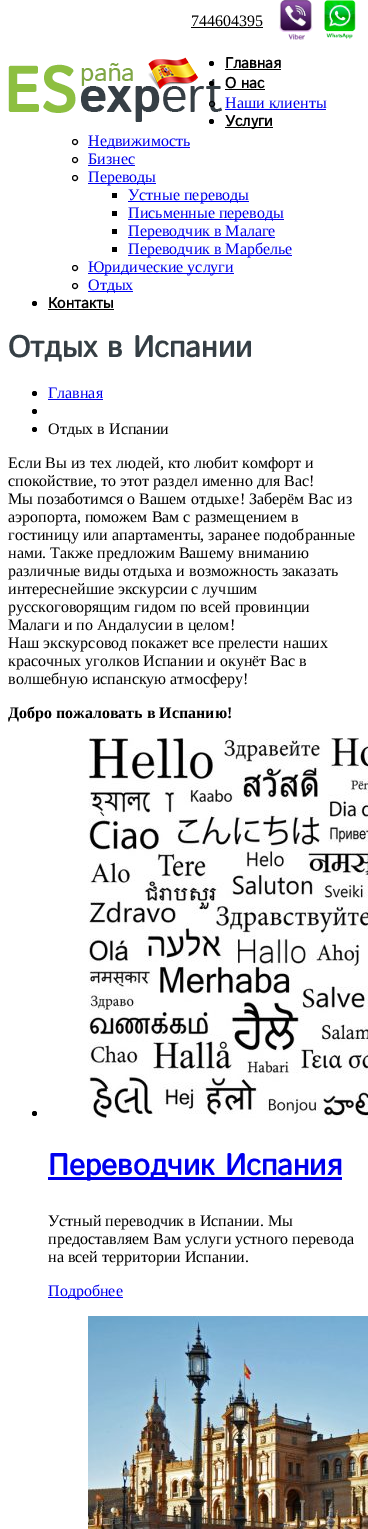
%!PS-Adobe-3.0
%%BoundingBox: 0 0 368 1529
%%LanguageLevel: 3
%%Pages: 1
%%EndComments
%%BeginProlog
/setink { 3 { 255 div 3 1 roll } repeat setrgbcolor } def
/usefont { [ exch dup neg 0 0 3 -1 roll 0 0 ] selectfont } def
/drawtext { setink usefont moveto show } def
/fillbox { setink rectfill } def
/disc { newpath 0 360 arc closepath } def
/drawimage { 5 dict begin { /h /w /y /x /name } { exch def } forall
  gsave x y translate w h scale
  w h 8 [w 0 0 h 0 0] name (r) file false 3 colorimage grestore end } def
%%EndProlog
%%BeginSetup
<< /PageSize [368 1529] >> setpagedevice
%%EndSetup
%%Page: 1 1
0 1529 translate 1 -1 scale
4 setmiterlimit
0 0 368 1529 255 255 255 fillbox
(744604395) 191 26 /LiberationSerif-Regular 16 0 0 0 drawtext
191 27 72 1 0 0 0 fillbox
(assets/img1.rgb) 279 0 34 40 drawimage
(assets/img2.rgb) 324 0 32 39 drawimage
(assets/img3.rgb) 8 57 215 65 drawimage
211.5 63.5 2.5 disc fill
(Главная) 225 68 /IstokWeb-Bold 15 0 0 0 drawtext
225 69 56 1 0 0 0 fillbox
211.5 83.5 2.5 disc fill
(О нас) 225 88 /IstokWeb-Bold 15 0 0 0 drawtext
225 89 40 1 0 0 0 fillbox
212 104 2.5 disc stroke
(Наши клиенты) 225 108 /LiberationSerif-Regular 16 0 0 238 drawtext
225 109 101 1 0 0 238 fillbox
0 0 0 setink
211.5 121.5 2.5 disc fill
225 127 48 1 0 0 0 fillbox
(Услуги) 225 126 /IstokWeb-Bold 15 0 0 0 drawtext
75 142 2.5 disc stroke
88 147 102 1 0 0 238 fillbox
(Недвижимость) 88 146 /LiberationSerif-Regular 16 0 0 238 drawtext
0 0 0 setink
75 160 2.5 disc stroke
(Бизнес) 88 164 /LiberationSerif-Regular 16 0 0 238 drawtext
88 165 47 1 0 0 238 fillbox
0 0 0 setink
75 178 2.5 disc stroke
88 183 68 1 0 0 238 fillbox
(Переводы) 88 182 /LiberationSerif-Regular 16 0 0 238 drawtext
112 193 5 5 0 0 0 fillbox
128 201 121 1 0 0 238 fillbox
(Устные переводы) 128 200 /LiberationSerif-Regular 16 0 0 238 drawtext
112 211 5 5 0 0 0 fillbox
128 219 156 1 0 0 238 fillbox
(Письменные переводы) 128 218 /LiberationSerif-Regular 16 0 0 238 drawtext
112 229 5 5 0 0 0 fillbox
128 237 147 1 0 0 238 fillbox
(Переводчик в Малаге) 128 236 /LiberationSerif-Regular 16 0 0 238 drawtext
112 247 5 5 0 0 0 fillbox
128 255 164 1 0 0 238 fillbox
(Переводчик в Марбелье) 128 254 /LiberationSerif-Regular 16 0 0 238 drawtext
0 0 0 setink
75 268 2.5 disc stroke
88 273 146 1 0 0 238 fillbox
(Юридические услуги) 88 272 /LiberationSerif-Regular 16 0 0 238 drawtext
0 0 0 setink
75 286 2.5 disc stroke
88 291 45 1 0 0 238 fillbox
(Отдых) 88 290 /LiberationSerif-Regular 16 0 0 238 drawtext
0 0 0 setink
34.5 303.5 2.5 disc fill
(Контакты) 48 308 /IstokWeb-Bold 15 0 0 0 drawtext
48 309 66 1 0 0 0 fillbox
(Отдых в Испании) 8 357 /IstokWeb-Bold 30 54 63 69 drawtext
0 0 0 setink
34.5 393.5 2.5 disc fill
(Главная) 48 398 /LiberationSerif-Regular 16 0 0 238 drawtext
48 399 55 1 0 0 238 fillbox
0 0 0 setink
34.5 411.5 2.5 disc fill
34.5 429.5 2.5 disc fill
(Отдых в Испании) 48 434 /LiberationSerif-Regular 16 0 0 0 drawtext
(Если Вы из тех людей, кто любит комфорт и) 8 468 /LiberationSerif-Regular 16 0 0 0 drawtext
(спокойствие, то этот раздел именно для Вас!) 8 486 /LiberationSerif-Regular 16 0 0 0 drawtext
(Мы позаботимся о Вашем отдыхе! Заберём Вас из) 8 504 /LiberationSerif-Regular 16 0 0 0 drawtext
(аэропорта, поможем Вам с размещением в) 8 522 /LiberationSerif-Regular 16 0 0 0 drawtext
(гостиницу или апартаменты, заранее подобранные) 8 540 /LiberationSerif-Regular 16 0 0 0 drawtext
(нами. Также предложим Вашему вниманию) 8 558 /LiberationSerif-Regular 16 0 0 0 drawtext
(различные виды отдыха и возможность заказать) 8 576 /LiberationSerif-Regular 16 0 0 0 drawtext
(интереснейшие экскурсии с лучшим) 8 594 /LiberationSerif-Regular 16 0 0 0 drawtext
(русскоговорящим гидом по всей провинции) 8 612 /LiberationSerif-Regular 16 0 0 0 drawtext
(Малаги и по Андалусии в целом!) 8 630 /LiberationSerif-Regular 16 0 0 0 drawtext
(Наш экскурсовод покажет все прелести наших) 8 648 /LiberationSerif-Regular 16 0 0 0 drawtext
(красочных уголков Испании и окунёт Вас в) 8 666 /LiberationSerif-Regular 16 0 0 0 drawtext
(волшебную испанскую атмосферу!) 8 684 /LiberationSerif-Regular 16 0 0 0 drawtext
(Добро пожаловать в Испанию!) 8 718 /LiberationSerif-Bold 16 0 0 0 drawtext
34.5 1113.5 2.5 disc fill
(assets/img4.rgb) 88 738 280 380 drawimage
48 1177 294 3 0 0 238 fillbox
(Переводчик Испания) 48 1175 /IstokWeb-Bold 30 0 0 238 drawtext
(Устный переводчик в Испании. Мы) 48 1226 /LiberationSerif-Regular 16 0 0 0 drawtext
(предоставляем Вам услуги устного перевода) 48 1244 /LiberationSerif-Regular 16 0 0 0 drawtext
(на всей территории Испании.) 48 1262 /LiberationSerif-Regular 16 0 0 0 drawtext
48 1297 75 1 0 0 238 fillbox
(Подробнее) 48 1296 /LiberationSerif-Regular 16 0 0 238 drawtext
(assets/img5.rgb) 88 1316 280 213 drawimage
showpage
%%EOF
